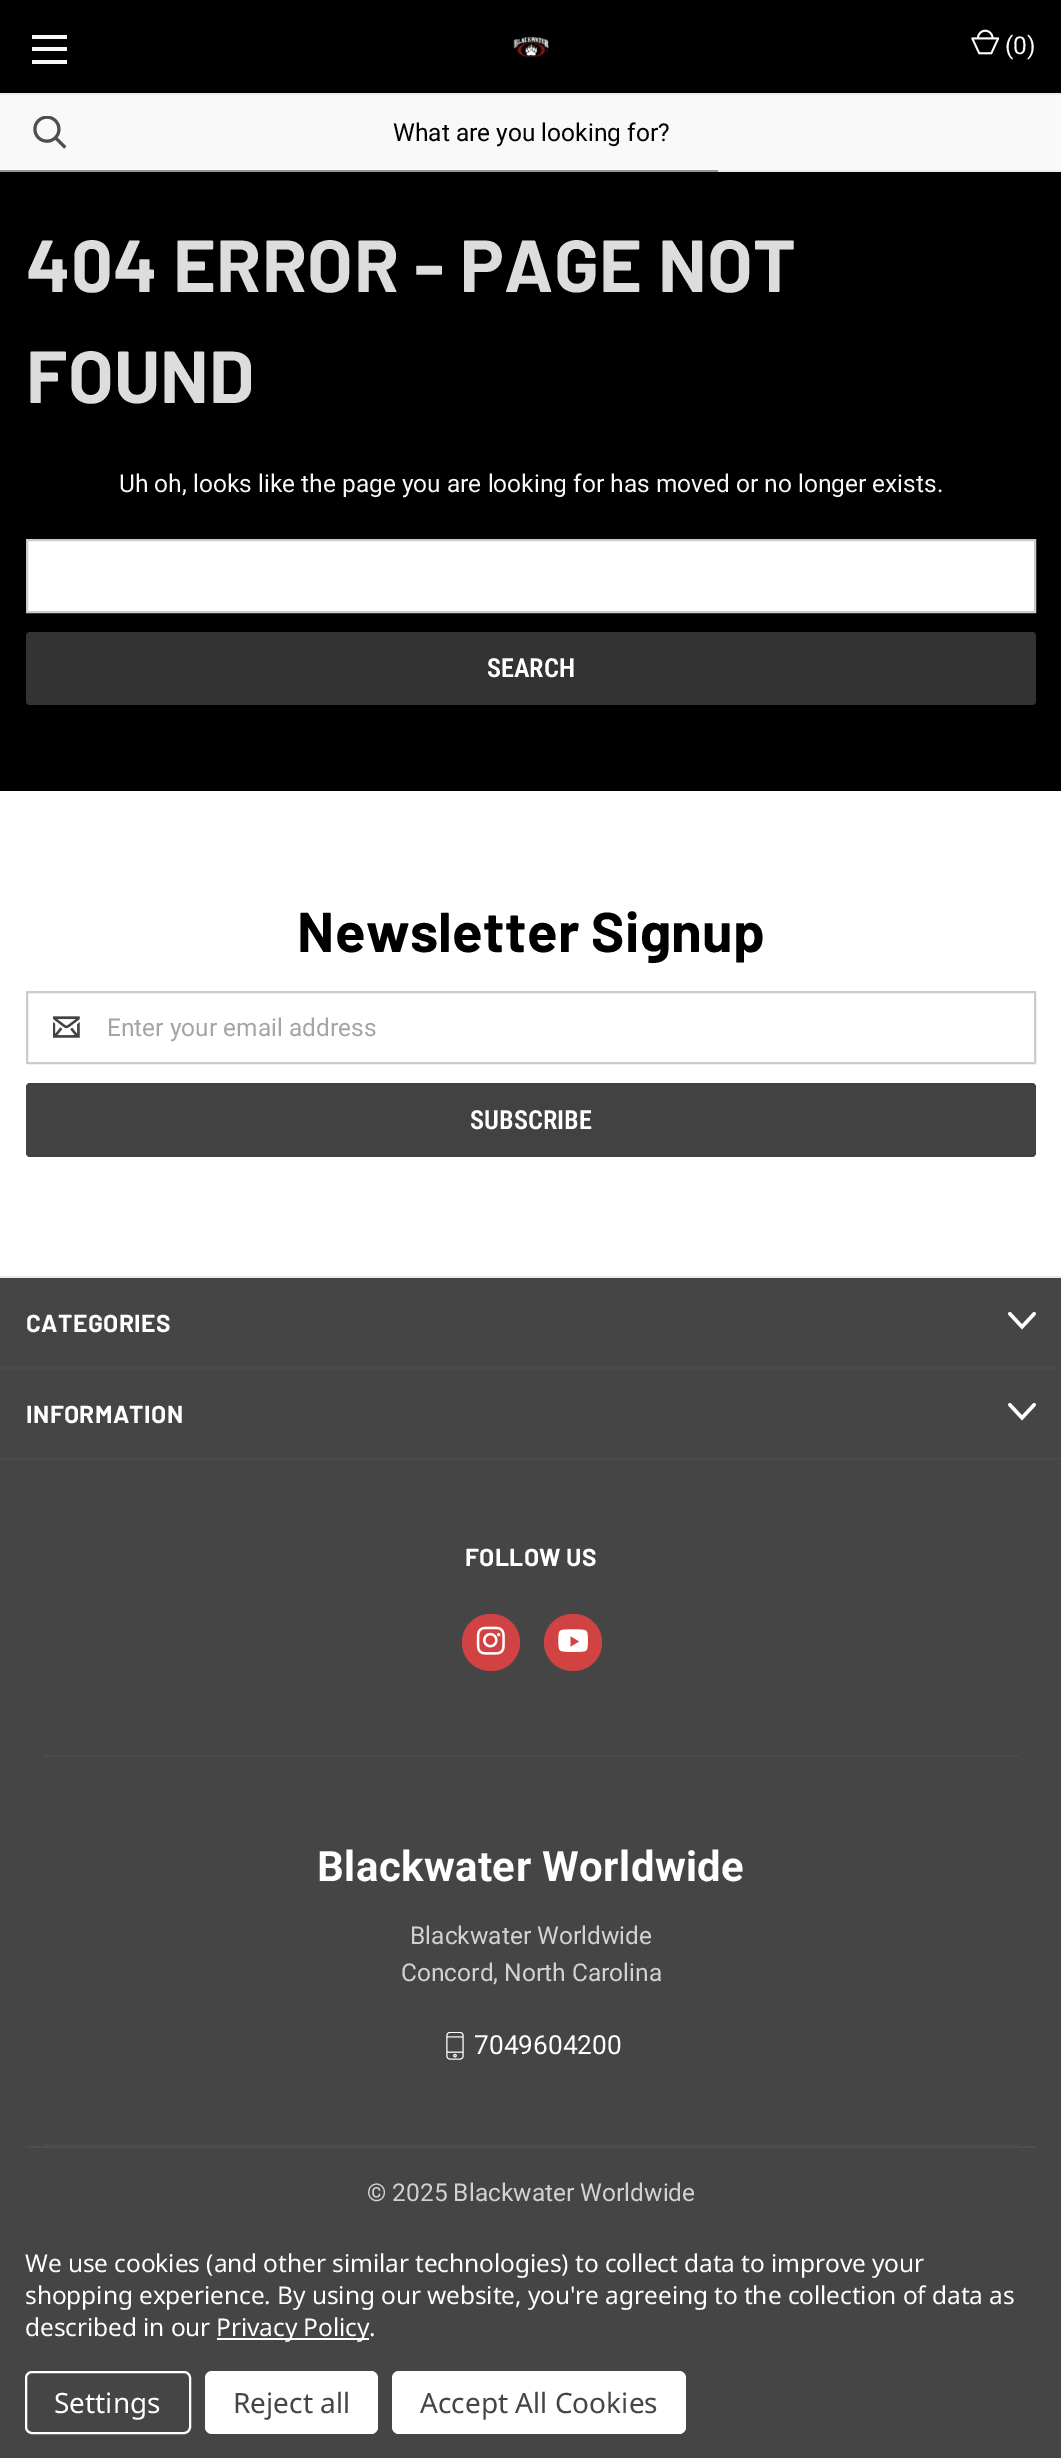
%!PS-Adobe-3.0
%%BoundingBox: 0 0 1061 2458
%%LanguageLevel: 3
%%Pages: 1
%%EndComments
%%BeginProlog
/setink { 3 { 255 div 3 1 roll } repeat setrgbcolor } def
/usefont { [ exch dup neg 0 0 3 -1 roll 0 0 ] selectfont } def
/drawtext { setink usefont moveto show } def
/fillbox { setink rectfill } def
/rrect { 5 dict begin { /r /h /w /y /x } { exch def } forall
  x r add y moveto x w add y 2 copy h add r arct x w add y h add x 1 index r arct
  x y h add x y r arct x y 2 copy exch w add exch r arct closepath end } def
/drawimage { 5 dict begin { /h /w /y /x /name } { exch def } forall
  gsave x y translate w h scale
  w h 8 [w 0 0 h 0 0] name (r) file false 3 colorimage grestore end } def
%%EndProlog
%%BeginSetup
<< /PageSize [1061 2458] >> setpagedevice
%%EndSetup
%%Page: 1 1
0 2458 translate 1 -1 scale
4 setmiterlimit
0 0 1061 2458 0 0 0 fillbox
718 170 343 2 235 235 235 fillbox
32 47 35 4 249 249 249 fillbox
32 35 35 4 249 249 249 fillbox
32 60 35 4 249 249 249 fillbox
(assets/img1.rgb) 513 36 36 23 drawimage
(assets/img2.rgb) 971 29 28 26 drawimage
(\(0\)) 1005 54 /Roboto-Regular 24.5 255 255 255 drawtext
0 95 1061 75 249 249 249 fillbox
(assets/img3.rgb) 33 116 34 33 drawimage
0 93 1061 2 235 235 235 fillbox
(What are you looking for?) 393 141 /Roboto-Regular 24.5 0 0 0 drawtext
0 170 718 2 150 150 150 fillbox
/Barlow-Bold 73.5 usefont
221 221 221 setink
26 292 moveto 0.4 0 (404 ERROR - PAGE NOT) ashow
26 403 moveto 0.4 0 (FOUND) ashow
(Uh oh, looks like the page you are looking for has moved or no longer exists.) 119 492 /Roboto-Regular 24.5 249 249 249 drawtext
255 255 255 setink
27 540 moveto 1035 540 lineto 1035 612 lineto 27 612 lineto closepath gsave fill grestore
204 204 204 setink
2 setlinewidth
stroke
51 51 51 setink
26 632 1010 73 4 rrect fill
(SEARCH) 487 677 /RobotoCondensed-SemiBold 26.25 255 255 255 drawtext
0 791 1061 485 255 255 255 fillbox
/Barlow-Bold 56 usefont
0 0 0 setink
297 952 moveto 0.4 0 (Newsletter Signup) ashow
204 204 204 setink
27 992 1008 71 rectstroke
(assets/img4.rgb) 53 1016 27 22 drawimage
(Enter your email address) 107 1036 /Roboto-Regular 24.5 165 165 165 drawtext
66 66 66 setink
26 1083 1010 74 4 rrect fill
(SUBSCRIBE) 470 1129 /RobotoCondensed-SemiBold 26.25 255 255 255 drawtext
0 1278 1061 1180 69 69 69 fillbox
0 1276 1061 2 235 235 235 fillbox
0 1367 1061 2 74 74 74 fillbox
/Barlow-Bold 24.5 usefont
255 255 255 setink
26 1332 moveto 0.4 0 (CATEGORIES) ashow
(assets/img5.rgb) 1008 1311 28 19 drawimage
0 1458 1061 2 74 74 74 fillbox
255 255 255 setink
26 1423 moveto 0.4 0 (INFORMATION) ashow
(assets/img5.rgb) 1008 1402 28 19 drawimage
44 1755 975 2 74 74 74 fillbox
255 255 255 setink
465 1566 moveto 0.4 0 (FOLLOW US) ashow
209 67 67 setink
462 1614 58 57 28.5 rrect fill
(assets/img6.rgb) 476 1626 29 29 drawimage
544 1614 58 57 28.5 rrect fill
(assets/img7.rgb) 558 1629 30 23 drawimage
44 2144 975 2 74 74 74 fillbox
/Roboto-Bold 42 usefont
255 255 255 setink
317 1881 moveto 0.4 0 (Blackwater Worldwide) ashow
(Blackwater Worldwide) 410 1944 /Roboto-Regular 24.5 210 210 210 drawtext
(Concord, North Carolina) 401 1981 /Roboto-Regular 24.5 210 210 210 drawtext
(assets/img8.rgb) 446 2032 18 28 drawimage
(7049604200) 474 2054 /Roboto-Regular 26.25 255 255 255 drawtext
26 2146 1010 2 78 78 78 fillbox
(© 2025 Blackwater Worldwide) 367 2201 /Roboto-Regular 24.5 210 210 210 drawtext
/NotoSans-Regular 24.5 usefont
255 255 255 setink
25 2272 moveto -0.1 0 (We use cookies \(and other similar technologies\) to collect data to improve your) ashow
25 2304 moveto -0.1 0 (shopping experience. By using our website, you're agreeing to the collection of data as) ashow
25 2336 moveto -0.1 0 (described in our) ashow
217 2338 152 2 255 255 255 fillbox
216 2336 moveto -0.1 0 (Privacy Policy.) ashow
26 2372 164 61 6 rrect stroke
(Settings) 54 2413 /NotoSans-Regular 28 255 255 255 drawtext
205 2371 173 63 7 rrect fill
(Reject all) 233 2413 /NotoSans-Regular 28 69 69 69 drawtext
255 255 255 setink
392 2371 294 63 7 rrect fill
(Accept All Cookies) 420 2413 /NotoSans-Regular 28 69 69 69 drawtext
showpage
%%EOF
